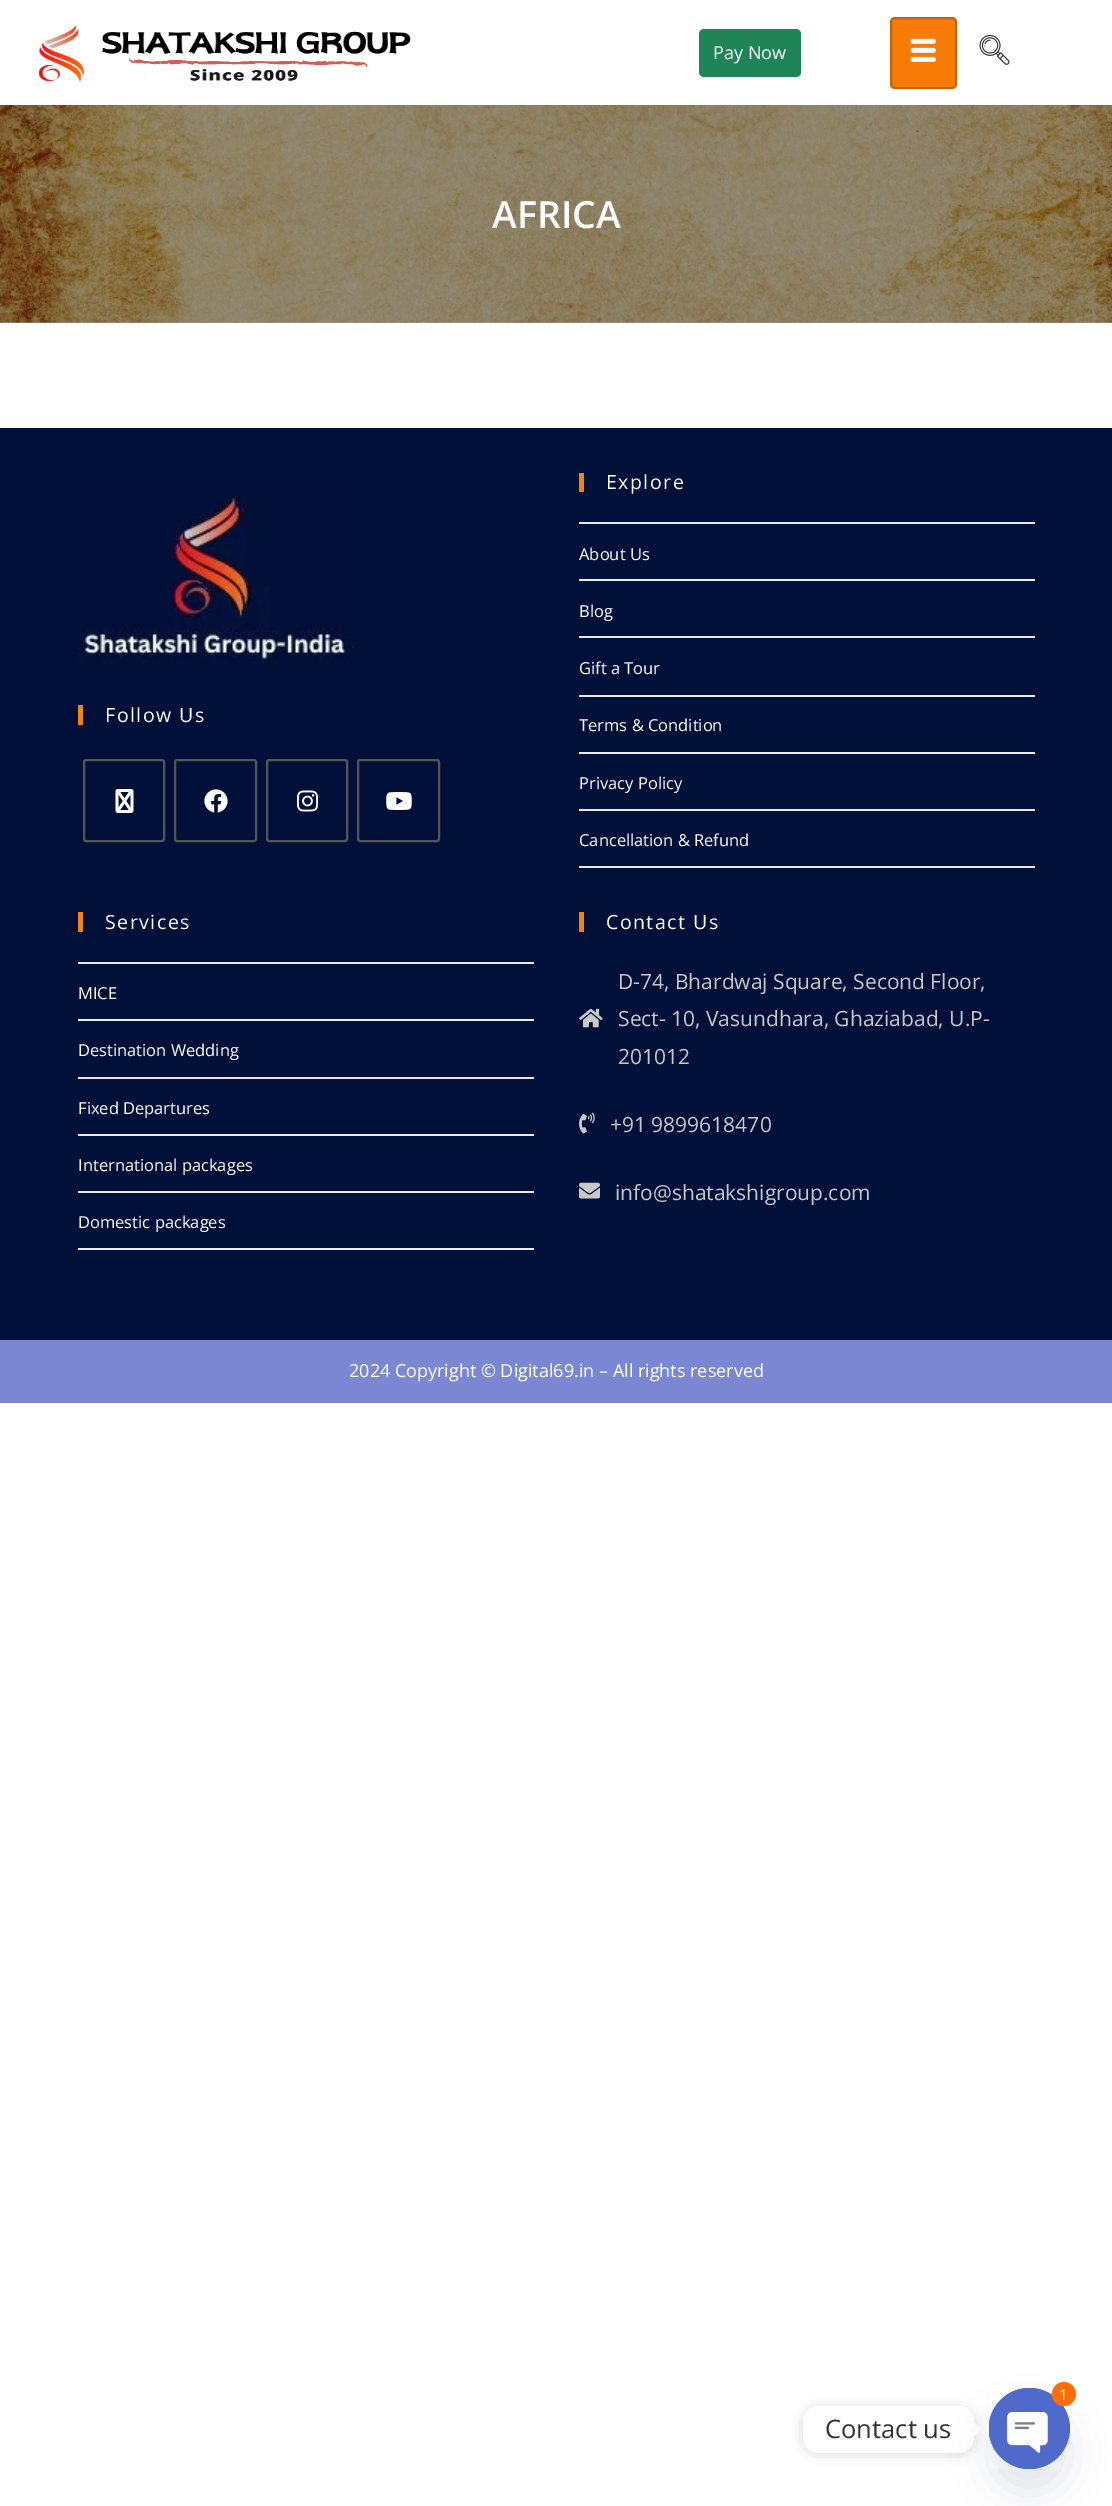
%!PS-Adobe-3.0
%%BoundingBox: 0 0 1112 2506
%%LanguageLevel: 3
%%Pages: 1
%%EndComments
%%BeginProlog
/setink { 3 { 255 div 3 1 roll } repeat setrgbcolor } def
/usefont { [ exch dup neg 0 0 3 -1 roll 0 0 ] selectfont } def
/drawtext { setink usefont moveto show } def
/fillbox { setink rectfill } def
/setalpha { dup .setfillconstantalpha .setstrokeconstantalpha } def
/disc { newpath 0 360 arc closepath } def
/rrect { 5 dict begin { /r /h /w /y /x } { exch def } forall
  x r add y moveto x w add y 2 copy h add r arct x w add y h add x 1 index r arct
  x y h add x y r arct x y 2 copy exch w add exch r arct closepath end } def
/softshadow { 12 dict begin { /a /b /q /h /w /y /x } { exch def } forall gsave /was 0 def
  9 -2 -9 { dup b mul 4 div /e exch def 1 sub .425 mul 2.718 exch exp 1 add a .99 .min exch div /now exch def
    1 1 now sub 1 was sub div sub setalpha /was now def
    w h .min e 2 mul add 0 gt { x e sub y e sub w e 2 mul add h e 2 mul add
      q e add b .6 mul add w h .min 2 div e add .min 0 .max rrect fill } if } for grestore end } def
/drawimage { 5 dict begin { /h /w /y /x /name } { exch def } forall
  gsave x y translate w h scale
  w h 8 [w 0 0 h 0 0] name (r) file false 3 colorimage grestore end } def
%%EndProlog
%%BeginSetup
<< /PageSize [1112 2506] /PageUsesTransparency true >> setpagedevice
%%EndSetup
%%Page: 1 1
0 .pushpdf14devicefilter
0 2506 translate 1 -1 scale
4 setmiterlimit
0 0 1112 2506 255 255 255 fillbox
0 322 1112 1 153 153 153 fillbox
(assets/img1.rgb) 38 25 373 58 drawimage
32 132 89 setink
699 29 102 48 5 rrect fill
(Pay Now) 713 59 /OpenSans-Regular 18 255 255 255 drawtext
248 123 7 setink
890 17 67 72 5 rrect fill
0.2 setalpha
0 0 0 setink
2 setlinewidth
891 18 65 70 4 rrect stroke
1 setalpha
(assets/img2.rgb) 910 38 26 24 drawimage
(assets/img3.rgb) 979 34 31 31 drawimage
(assets/img4.rgb) 0 105 1112 218 drawimage
(AFRICA) 492 228 /OpenSans-SemiBold 37.5 255 255 255 drawtext
0 428 1112 912 0 16 56 fillbox
(assets/img5.rgb) 78 485 276 182 drawimage
78 705 5 20 241 132 14 fillbox
/OpenSans-Regular 19.5 usefont
255 255 255 setink
105 722 moveto 1.5 0 (Follow Us) ashow
85 85 85 setink
84 760 80 81 2 rrect stroke
(assets/img6.rgb) 115 789 19 24 drawimage
175 760 81 81 2 rrect stroke
(assets/img7.rgb) 204 789 24 24 drawimage
267 760 80 81 2 rrect stroke
(assets/img8.rgb) 297 790 22 22 drawimage
358 760 81 81 2 rrect stroke
(assets/img9.rgb) 386 792 26 18 drawimage
579 473 5 19 241 132 14 fillbox
255 255 255 setink
606 489 moveto 1.5 0 (Explore) ashow
579 522 456 2 233 233 233 fillbox
579 579 456 2 233 233 233 fillbox
(About Us) 579 560 /OpenSans-Regular 16.5 255 255 255 drawtext
579 636 456 2 233 233 233 fillbox
(Blog) 579 617 /OpenSans-Regular 16.5 255 255 255 drawtext
579 695 456 2 233 233 233 fillbox
(Gift a Tour) 579 674 /OpenSans-Regular 16.5 255 255 255 drawtext
579 752 456 2 233 233 233 fillbox
(Terms & Condition) 579 731 /OpenSans-Regular 16.5 255 255 255 drawtext
579 809 456 2 233 233 233 fillbox
(Privacy Policy) 579 789 /OpenSans-Regular 16.5 255 255 255 drawtext
579 866 456 2 233 233 233 fillbox
(Cancellation & Refund) 579 846 /OpenSans-Regular 16.5 255 255 255 drawtext
78 912 5 20 241 132 14 fillbox
/OpenSans-Regular 19.5 usefont
255 255 255 setink
105 929 moveto 1.5 0 (Services) ashow
78 962 456 2 233 233 233 fillbox
78 1019 456 2 233 233 233 fillbox
(MICE) 78 999 /OpenSans-Regular 16.5 255 255 255 drawtext
78 1077 456 2 233 233 233 fillbox
(Destination Wedding) 78 1056 /OpenSans-Regular 16.5 255 255 255 drawtext
78 1134 456 2 233 233 233 fillbox
(Fixed Departures) 78 1114 /OpenSans-Regular 16.5 255 255 255 drawtext
78 1191 456 2 233 233 233 fillbox
(International packages) 78 1171 /OpenSans-Regular 16.5 255 255 255 drawtext
78 1248 456 2 233 233 233 fillbox
(Domestic packages) 78 1228 /OpenSans-Regular 16.5 255 255 255 drawtext
579 912 5 20 241 132 14 fillbox
/OpenSans-Regular 19.5 usefont
255 255 255 setink
606 929 moveto 1.5 0 (Contact Us) ashow
(assets/img10.rgb) 579 1008 24 20 drawimage
(D-74, Bhardwaj Square, Second Floor,) 618 989 /OpenSans-Regular 21 200 200 200 drawtext
(Sect- 10, Vasundhara, Ghaziabad, U.P-) 618 1026 /OpenSans-Regular 21 200 200 200 drawtext
(201012) 618 1064 /OpenSans-Regular 21 200 200 200 drawtext
(assets/img11.rgb) 579 1112 16 22 drawimage
(+91 9899618470) 610 1132 /OpenSans-Regular 21 200 200 200 drawtext
(assets/img12.rgb) 579 1182 21 17 drawimage
(info@shatakshigroup.com) 615 1200 /OpenSans-Regular 21 200 200 200 drawtext
0 1340 1112 63 123 135 210 fillbox
(2024 Copyright © Digital69.in – All rights reserved) 349 1377 /OpenSans-Regular 18 255 255 255 drawtext
0 0 0 setink
803 2408 171 46 15 6 0.15 softshadow
255 255 255 setink
803 2406 171 47 15 rrect fill
973.5 2437 moveto 973.5 2422 lineto 981 2429 lineto closepath fill
73 104 126 setink
989 2412 81 81 40.5 18 0.16 softshadow
79 106 202 setink
1029.5 2428.5 40.5 disc fill
(assets/img13.rgb) 989 2388 72 81 drawimage
255 110 4 setink
1064 2394 12 disc fill
(1) 1059 2400 /OpenSans-Regular 15 255 255 255 drawtext
(Contact us) 825 2438 /OpenSans-Regular 25.5 51 51 51 drawtext
.poppdf14devicefilter showpage
%%EOF
